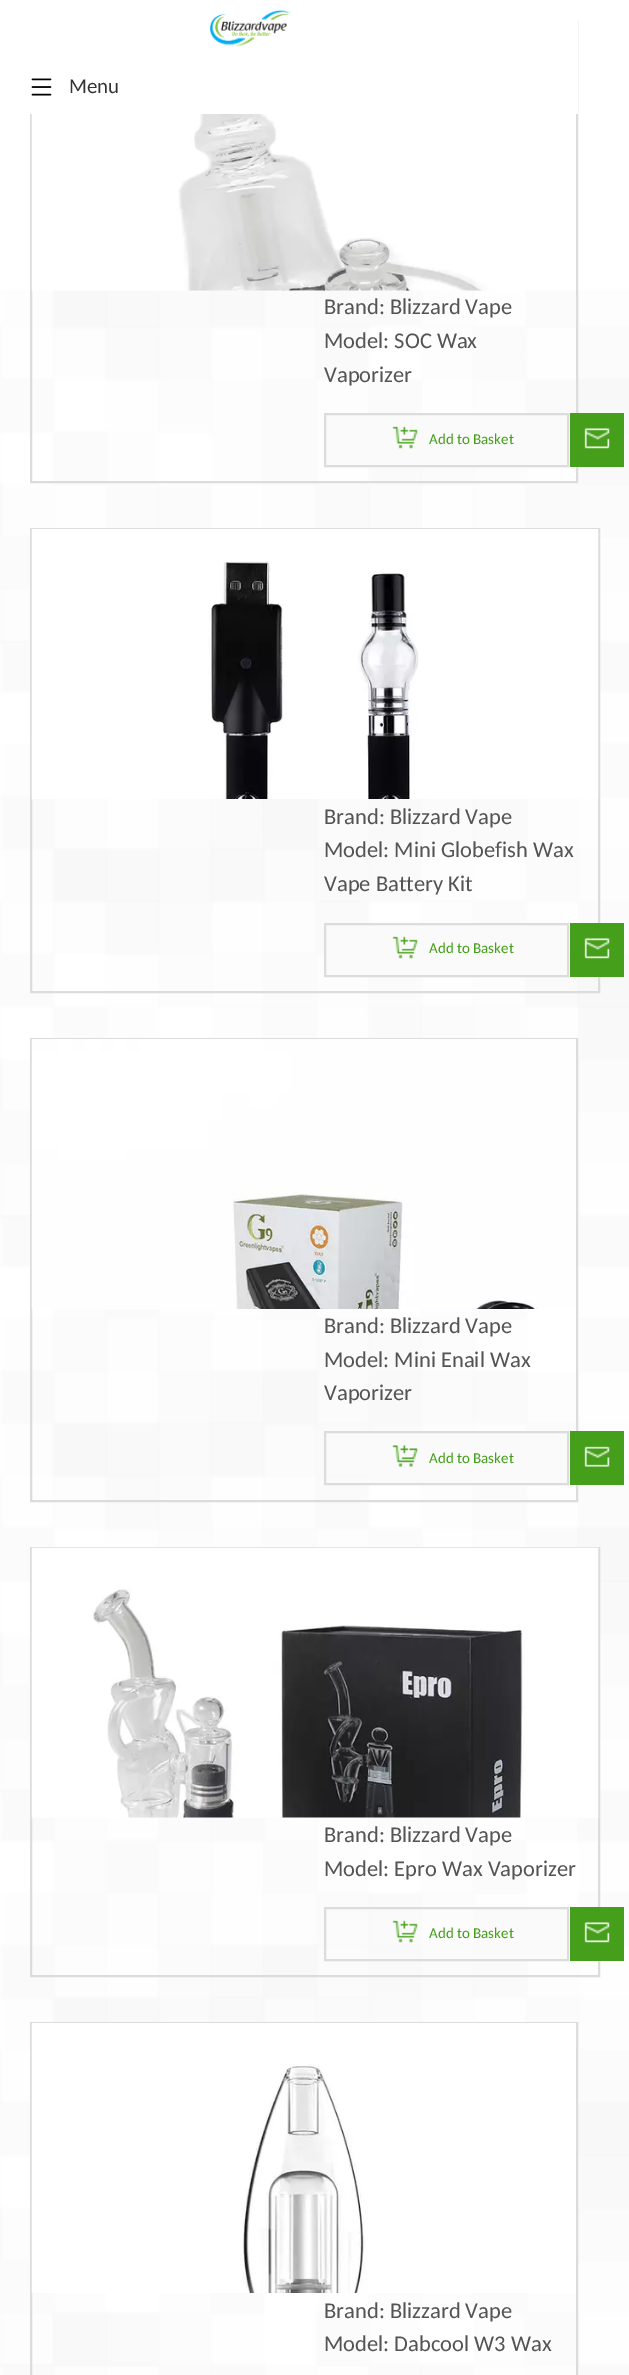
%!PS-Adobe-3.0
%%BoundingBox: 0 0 629 2375
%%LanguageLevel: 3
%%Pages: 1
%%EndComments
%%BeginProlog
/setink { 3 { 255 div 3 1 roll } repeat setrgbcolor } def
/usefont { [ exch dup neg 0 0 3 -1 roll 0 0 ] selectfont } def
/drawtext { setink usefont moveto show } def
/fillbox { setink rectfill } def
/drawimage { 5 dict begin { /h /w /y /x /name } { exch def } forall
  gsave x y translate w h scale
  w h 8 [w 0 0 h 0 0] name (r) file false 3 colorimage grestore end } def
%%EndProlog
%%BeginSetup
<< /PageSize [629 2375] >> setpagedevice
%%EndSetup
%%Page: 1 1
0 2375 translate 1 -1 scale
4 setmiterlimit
0 0 629 2375 255 255 255 fillbox
(assets/img1.rgb) 0 290 629 2085 drawimage
220 220 220 setink
2 setlinewidth
31 21 546 461 rectstroke
30 20 548 94 255 255 255 fillbox
(assets/img2.rgb) 210 10 81 37 drawimage
(assets/img3.rgb) 31 78 21 18 drawimage
(Menu) 69 93 /Carlito-Regular 21 51 51 51 drawtext
(assets/img4.rgb) 31 114 545 177 drawimage
(Brand: Blizzard Vape) 324 314 /Carlito-Regular 22.5 84 84 84 drawtext
(Model: SOC Wax) 324 348 /Carlito-Regular 22.5 84 84 84 drawtext
(Vaporizer) 324 382 /Carlito-Regular 22.5 84 84 84 drawtext
250 250 250 setink
325 414 moveto 568 414 lineto 568 466 lineto 325 466 lineto closepath gsave fill grestore
220 220 220 setink
stroke
(assets/img5.rgb) 392 426 26 23 drawimage
(Add to Basket) 429 444 /Carlito-Regular 15 70 159 26 drawtext
570 413 54 54 70 159 26 fillbox
(assets/img6.rgb) 584 428 26 21 drawimage
220 220 220 setink
31 529 568 463 rectstroke
(assets/img7.rgb) 31 529 568 270 drawimage
(Brand: Blizzard Vape) 324 824 /Carlito-Regular 22.5 84 84 84 drawtext
(Model: Mini Globefish Wax) 324 857 /Carlito-Regular 22.5 84 84 84 drawtext
(Vape Battery Kit) 324 891 /Carlito-Regular 22.5 84 84 84 drawtext
250 250 250 setink
325 924 moveto 568 924 lineto 568 976 lineto 325 976 lineto closepath gsave fill grestore
220 220 220 setink
stroke
(assets/img5.rgb) 392 936 26 23 drawimage
(Add to Basket) 429 953 /Carlito-Regular 15 70 159 26 drawtext
570 923 54 54 70 159 26 fillbox
(assets/img6.rgb) 584 938 26 21 drawimage
220 220 220 setink
31 1039 546 462 rectstroke
(assets/img8.rgb) 31 1039 545 270 drawimage
(Brand: Blizzard Vape) 324 1333 /Carlito-Regular 22.5 84 84 84 drawtext
(Model: Mini Enail Wax) 324 1367 /Carlito-Regular 22.5 84 84 84 drawtext
(Vaporizer) 324 1400 /Carlito-Regular 22.5 84 84 84 drawtext
369 1433 198 50 250 250 250 fillbox
220 220 220 setink
325 1432 243 52 rectstroke
(assets/img9.rgb) 392 1445 26 22 drawimage
(Add to Basket) 429 1463 /Carlito-Regular 15 70 159 26 drawtext
570 1431 54 54 70 159 26 fillbox
(assets/img10.rgb) 584 1446 26 21 drawimage
220 220 220 setink
31 1548 568 428 rectstroke
(assets/img11.rgb) 31 1547 568 271 drawimage
(Brand: Blizzard Vape) 324 1842 /Carlito-Regular 22.5 84 84 84 drawtext
(Model: Epro Wax Vaporizer) 324 1876 /Carlito-Regular 22.5 84 84 84 drawtext
474 1909 93 50 250 250 250 fillbox
220 220 220 setink
325 1908 243 52 rectstroke
(assets/img5.rgb) 392 1920 26 23 drawimage
(Add to Basket) 429 1938 /Carlito-Regular 15 70 159 26 drawtext
570 1907 54 54 70 159 26 fillbox
(assets/img6.rgb) 584 1922 26 21 drawimage
220 220 220 setink
31 2023 546 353 rectstroke
(assets/img12.rgb) 31 2023 545 270 drawimage
(Brand: Blizzard Vape) 324 2318 /Carlito-Regular 22.5 84 84 84 drawtext
(Model: Dabcool W3 Wax) 324 2351 /Carlito-Regular 22.5 84 84 84 drawtext
showpage
%%EOF
